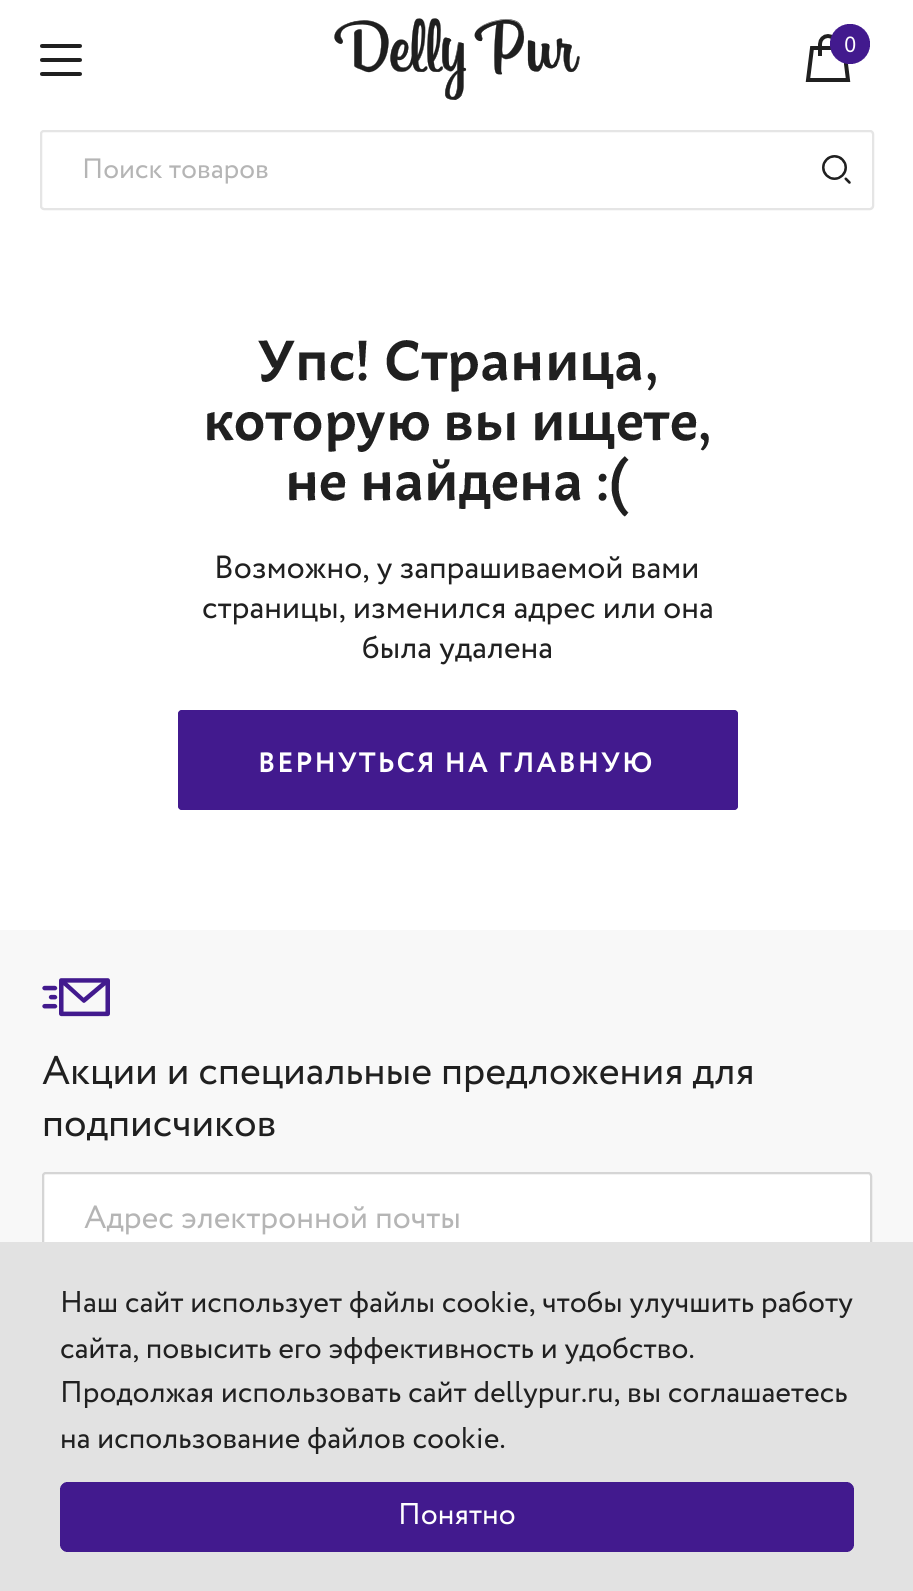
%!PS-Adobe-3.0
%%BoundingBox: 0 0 913 1591
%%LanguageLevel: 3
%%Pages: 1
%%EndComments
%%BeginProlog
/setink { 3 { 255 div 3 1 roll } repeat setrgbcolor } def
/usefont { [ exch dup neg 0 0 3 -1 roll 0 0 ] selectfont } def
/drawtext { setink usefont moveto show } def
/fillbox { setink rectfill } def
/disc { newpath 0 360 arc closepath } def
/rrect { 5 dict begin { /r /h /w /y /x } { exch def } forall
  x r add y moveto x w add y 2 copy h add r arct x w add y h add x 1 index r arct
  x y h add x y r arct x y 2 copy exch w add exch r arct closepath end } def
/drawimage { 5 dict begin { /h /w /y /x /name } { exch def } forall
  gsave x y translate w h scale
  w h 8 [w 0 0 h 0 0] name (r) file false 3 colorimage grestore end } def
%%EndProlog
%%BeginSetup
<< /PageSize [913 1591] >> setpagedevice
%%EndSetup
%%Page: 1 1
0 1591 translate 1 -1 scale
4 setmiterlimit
0 0 913 1591 255 255 255 fillbox
(assets/img1.rgb) 40 44 42 32 drawimage
(assets/img2.rgb) 334 18 246 82 drawimage
(assets/img4.rgb) 805 34 46 48 drawimage
66 26 142 setink
850 44 20 disc fill
(assets/img3.rgb) 845 36 11 17 drawimage
229 229 229 setink
2 setlinewidth
41 131 832 78 3 rrect stroke
(assets/img5.rgb) 84 158 184 26 drawimage
(assets/img6.rgb) 822 155 29 29 drawimage
(Упс! Страница,) 256 380 /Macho-SemiBold 56 32 32 32 drawtext
(которую вы ищете,) 203 440 /Macho-SemiBold 56 32 32 32 drawtext
(не найдена :\() 285 500 /Macho-SemiBold 56 32 32 32 drawtext
(assets/img7.rgb) 217 555 480 30 drawimage
(assets/img8.rgb) 203 603 509 22 drawimage
(assets/img9.rgb) 363 635 188 30 drawimage
66 26 142 setink
178 710 560 100 4 rrect fill
(assets/img10.rgb) 260 752 392 21 drawimage
0 930 913 312 248 248 248 fillbox
(assets/img11.rgb) 42 978 68 39 drawimage
(assets/img12.rgb) 42 1055 710 37 drawimage
(assets/img13.rgb) 44 1117 231 24 drawimage
255 255 255 setink
43 1173 828 94 3 rrect gsave fill grestore
213 213 213 setink
stroke
(assets/img14.rgb) 84 1205 375 30 drawimage
0 1242 913 349 226 226 226 fillbox
(assets/img15.rgb) 63 1290 790 28 drawimage
(assets/img16.rgb) 61 1336 633 28 drawimage
(assets/img17.rgb) 63 1381 784 27 drawimage
(assets/img18.rgb) 62 1427 443 27 drawimage
66 26 142 setink
60 1482 794 70 8 rrect fill
(assets/img19.rgb) 401 1503 114 22 drawimage
showpage
%%EOF
